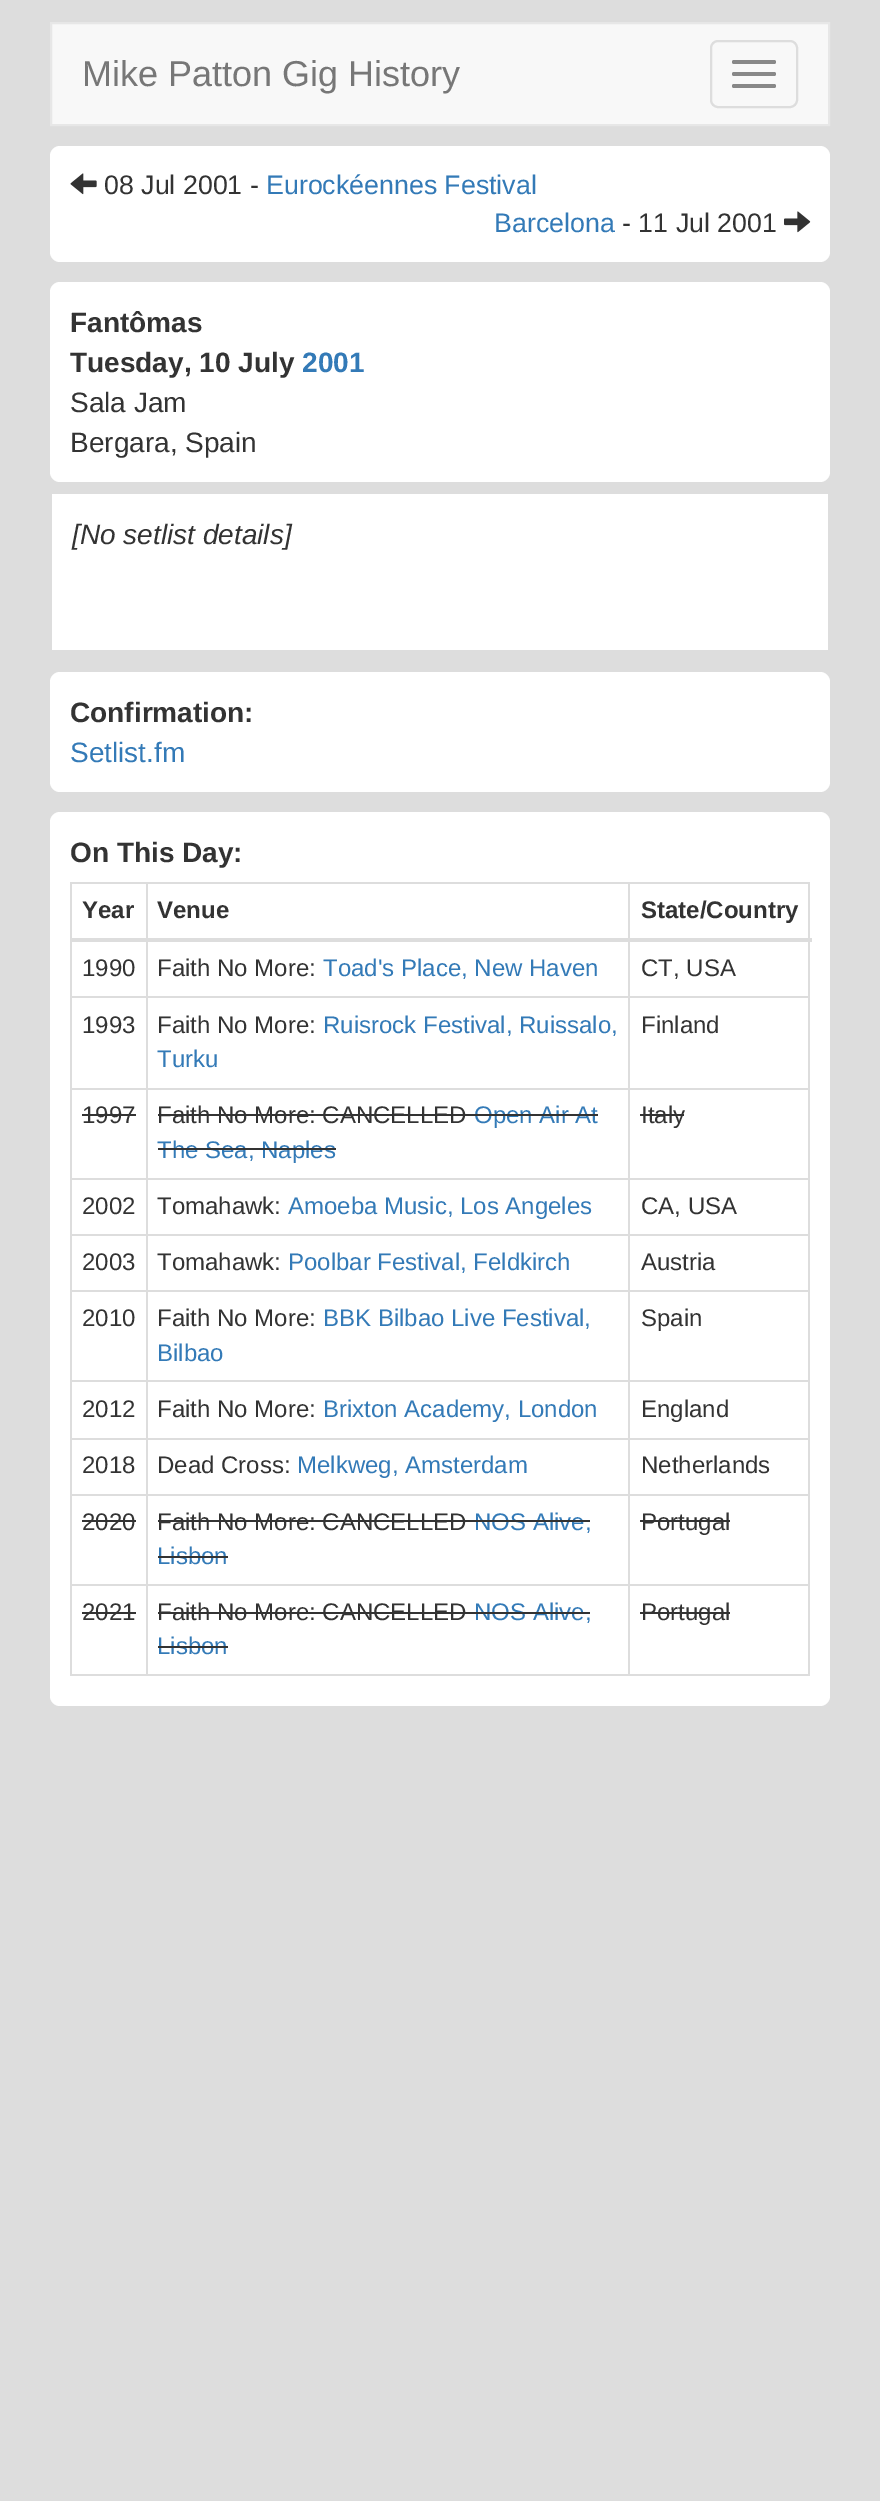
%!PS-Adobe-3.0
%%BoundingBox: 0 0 880 2501
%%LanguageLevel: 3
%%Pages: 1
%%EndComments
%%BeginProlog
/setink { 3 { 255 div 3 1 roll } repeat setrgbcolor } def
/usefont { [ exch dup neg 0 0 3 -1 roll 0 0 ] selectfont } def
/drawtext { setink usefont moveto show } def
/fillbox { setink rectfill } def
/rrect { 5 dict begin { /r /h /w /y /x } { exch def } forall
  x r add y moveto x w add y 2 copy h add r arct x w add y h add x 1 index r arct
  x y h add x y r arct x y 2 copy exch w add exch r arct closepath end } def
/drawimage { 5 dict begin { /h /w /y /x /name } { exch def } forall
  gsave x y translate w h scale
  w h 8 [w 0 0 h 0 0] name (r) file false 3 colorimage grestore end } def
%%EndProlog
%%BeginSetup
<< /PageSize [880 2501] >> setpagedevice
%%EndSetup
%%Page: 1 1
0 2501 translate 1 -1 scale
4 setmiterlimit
0 0 880 2501 221 221 221 fillbox
248 248 248 setink
51 23 moveto 829 23 lineto 829 125 lineto 51 125 lineto closepath gsave fill grestore
231 231 231 setink
2 setlinewidth
stroke
(Mike Patton Gig History) 82 86 /LiberationSans-Regular 36 119 119 119 drawtext
221 221 221 setink
711 41 86 66 7 rrect stroke
136 136 136 setink
732 60 44 4 2 rrect fill
732 72 44 4 2 rrect fill
732 84 44 4 2 rrect fill
255 255 255 setink
50 146 780 116 10 rrect fill
(assets/img1.rgb) 70 173 27 22 drawimage
(08 Jul 2001 -) 104 194 /LiberationSans-Regular 26.75 51 51 51 drawtext
(Eurockéennes Festival) 266 194 /LiberationSans-Regular 26.75 51 122 183 drawtext
(Barcelona) 494 232 /LiberationSans-Regular 26.75 51 122 183 drawtext
(- 11 Jul 2001) 622 232 /LiberationSans-Regular 26.75 51 51 51 drawtext
(assets/img2.rgb) 784 211 27 22 drawimage
255 255 255 setink
50 282 780 200 10 rrect fill
(Fantômas) 70 332 /LiberationSans-Bold 28 51 51 51 drawtext
(Tuesday, 10 July) 70 372 /LiberationSans-Bold 28 51 51 51 drawtext
(2001) 302 372 /LiberationSans-Bold 28 51 122 183 drawtext
(Sala Jam) 70 412 /LiberationSans-Regular 28 51 51 51 drawtext
(Bergara, Spain) 70 452 /LiberationSans-Regular 28 51 51 51 drawtext
52 494 776 156 255 255 255 fillbox
([No setlist details]) 72 544 /LiberationSans-Italic 28 51 51 51 drawtext
255 255 255 setink
50 672 780 120 10 rrect fill
(Confirmation:) 70 722 /LiberationSans-Bold 28 51 51 51 drawtext
(Setlist.fm) 70 762 /LiberationSans-Regular 28 51 122 183 drawtext
255 255 255 setink
50 812 780 894 10 rrect fill
(On This Day:) 70 862 /LiberationSans-Bold 28 51 51 51 drawtext
70 882 740 2 221 221 221 fillbox
808 882 2 794 221 221 221 fillbox
70 1674 740 2 221 221 221 fillbox
70 882 2 794 221 221 221 fillbox
(Year) 82 918 /LiberationSans-Bold 24 51 51 51 drawtext
(Venue) 157 918 /LiberationSans-Bold 24 51 51 51 drawtext
628 996 182 2 221 221 221 fillbox
628 1088 182 2 221 221 221 fillbox
628 1178 182 2 221 221 221 fillbox
628 1234 182 2 221 221 221 fillbox
628 1290 182 2 221 221 221 fillbox
628 1380 182 2 221 221 221 fillbox
628 1438 182 2 221 221 221 fillbox
628 1494 182 2 221 221 221 fillbox
628 1584 182 2 221 221 221 fillbox
628 1584 2 92 221 221 221 fillbox
146 1584 484 2 221 221 221 fillbox
628 1494 2 92 221 221 221 fillbox
146 1494 484 2 221 221 221 fillbox
628 1438 2 58 221 221 221 fillbox
146 1438 484 2 221 221 221 fillbox
628 1380 2 60 221 221 221 fillbox
146 1380 484 2 221 221 221 fillbox
628 1290 2 92 221 221 221 fillbox
146 1290 484 2 221 221 221 fillbox
628 1234 2 58 221 221 221 fillbox
146 1234 484 2 221 221 221 fillbox
628 1178 2 58 221 221 221 fillbox
146 1178 484 2 221 221 221 fillbox
628 1088 2 92 221 221 221 fillbox
146 1088 484 2 221 221 221 fillbox
628 996 2 94 221 221 221 fillbox
146 996 484 2 221 221 221 fillbox
146 1584 2 92 221 221 221 fillbox
70 1584 78 2 221 221 221 fillbox
146 1494 2 92 221 221 221 fillbox
70 1494 78 2 221 221 221 fillbox
146 1438 2 58 221 221 221 fillbox
70 1438 78 2 221 221 221 fillbox
146 1380 2 60 221 221 221 fillbox
70 1380 78 2 221 221 221 fillbox
146 1290 2 92 221 221 221 fillbox
70 1290 78 2 221 221 221 fillbox
146 1234 2 58 221 221 221 fillbox
70 1234 78 2 221 221 221 fillbox
146 1178 2 58 221 221 221 fillbox
70 1178 78 2 221 221 221 fillbox
146 1088 2 92 221 221 221 fillbox
70 1088 78 2 221 221 221 fillbox
146 996 2 94 221 221 221 fillbox
70 996 78 2 221 221 221 fillbox
146 882 2 116 221 221 221 fillbox
628 882 2 116 221 221 221 fillbox
70 938 742 4 221 221 221 fillbox
(State/Country) 641 918 /LiberationSans-Bold 24 51 51 51 drawtext
(1990) 82 976 /LiberationSans-Regular 24 51 51 51 drawtext
(Faith No More:) 157 976 /LiberationSans-Regular 24 51 51 51 drawtext
(Toad's Place, New Haven) 323 976 /LiberationSans-Regular 24 51 122 183 drawtext
(CT, USA) 641 976 /LiberationSans-Regular 24 51 51 51 drawtext
(1993) 82 1033 /LiberationSans-Regular 24 51 51 51 drawtext
(Faith No More:) 157 1033 /LiberationSans-Regular 24 51 51 51 drawtext
(Ruisrock Festival, Ruissalo,) 323 1033 /LiberationSans-Regular 24 51 122 183 drawtext
(Turku) 157 1067 /LiberationSans-Regular 24 51 122 183 drawtext
(Finland) 641 1033 /LiberationSans-Regular 24 51 51 51 drawtext
(1997) 82 1123 /LiberationSans-Regular 24 51 51 51 drawtext
82 1114 54 2 51 51 51 fillbox
(Faith No More: CANCELLED) 157 1123 /LiberationSans-Regular 24 51 51 51 drawtext
158 1114 316 2 51 51 51 fillbox
(Open Air At) 474 1123 /LiberationSans-Regular 24 51 122 183 drawtext
474 1114 124 2 51 51 51 fillbox
(The Sea, Naples) 157 1158 /LiberationSans-Regular 24 51 122 183 drawtext
158 1148 178 2 51 51 51 fillbox
(Italy) 641 1123 /LiberationSans-Regular 24 51 51 51 drawtext
640 1114 44 2 51 51 51 fillbox
(2002) 82 1214 /LiberationSans-Regular 24 51 51 51 drawtext
(Tomahawk:) 157 1214 /LiberationSans-Regular 24 51 51 51 drawtext
(Amoeba Music, Los Angeles) 288 1214 /LiberationSans-Regular 24 51 122 183 drawtext
(CA, USA) 641 1214 /LiberationSans-Regular 24 51 51 51 drawtext
(2003) 82 1270 /LiberationSans-Regular 24 51 51 51 drawtext
(Tomahawk:) 157 1270 /LiberationSans-Regular 24 51 51 51 drawtext
(Poolbar Festival, Feldkirch) 288 1270 /LiberationSans-Regular 24 51 122 183 drawtext
(Austria) 641 1270 /LiberationSans-Regular 24 51 51 51 drawtext
(2010) 82 1326 /LiberationSans-Regular 24 51 51 51 drawtext
(Faith No More:) 157 1326 /LiberationSans-Regular 24 51 51 51 drawtext
(BBK Bilbao Live Festival,) 323 1326 /LiberationSans-Regular 24 51 122 183 drawtext
(Bilbao) 157 1361 /LiberationSans-Regular 24 51 122 183 drawtext
(Spain) 641 1326 /LiberationSans-Regular 24 51 51 51 drawtext
(2012) 82 1417 /LiberationSans-Regular 24 51 51 51 drawtext
(Faith No More:) 157 1417 /LiberationSans-Regular 24 51 51 51 drawtext
(Brixton Academy, London) 323 1417 /LiberationSans-Regular 24 51 122 183 drawtext
(England) 641 1417 /LiberationSans-Regular 24 51 51 51 drawtext
(2018) 82 1473 /LiberationSans-Regular 24 51 51 51 drawtext
(Dead Cross:) 157 1473 /LiberationSans-Regular 24 51 51 51 drawtext
(Melkweg, Amsterdam) 297 1473 /LiberationSans-Regular 24 51 122 183 drawtext
(Netherlands) 641 1473 /LiberationSans-Regular 24 51 51 51 drawtext
(2020) 82 1530 /LiberationSans-Regular 24 51 51 51 drawtext
82 1520 54 2 51 51 51 fillbox
(Faith No More: CANCELLED) 157 1530 /LiberationSans-Regular 24 51 51 51 drawtext
158 1520 316 2 51 51 51 fillbox
(NOS Alive,) 474 1530 /LiberationSans-Regular 24 51 122 183 drawtext
474 1520 116 2 51 51 51 fillbox
(Lisbon) 157 1564 /LiberationSans-Regular 24 51 122 183 drawtext
158 1556 70 2 51 51 51 fillbox
(Portugal) 641 1530 /LiberationSans-Regular 24 51 51 51 drawtext
640 1520 90 2 51 51 51 fillbox
(2021) 82 1620 /LiberationSans-Regular 24 51 51 51 drawtext
82 1612 54 2 51 51 51 fillbox
(Faith No More: CANCELLED) 157 1620 /LiberationSans-Regular 24 51 51 51 drawtext
158 1612 316 2 51 51 51 fillbox
(NOS Alive,) 474 1620 /LiberationSans-Regular 24 51 122 183 drawtext
474 1612 116 2 51 51 51 fillbox
(Lisbon) 157 1654 /LiberationSans-Regular 24 51 122 183 drawtext
158 1646 70 2 51 51 51 fillbox
(Portugal) 641 1620 /LiberationSans-Regular 24 51 51 51 drawtext
640 1612 90 2 51 51 51 fillbox
showpage
%%EOF
